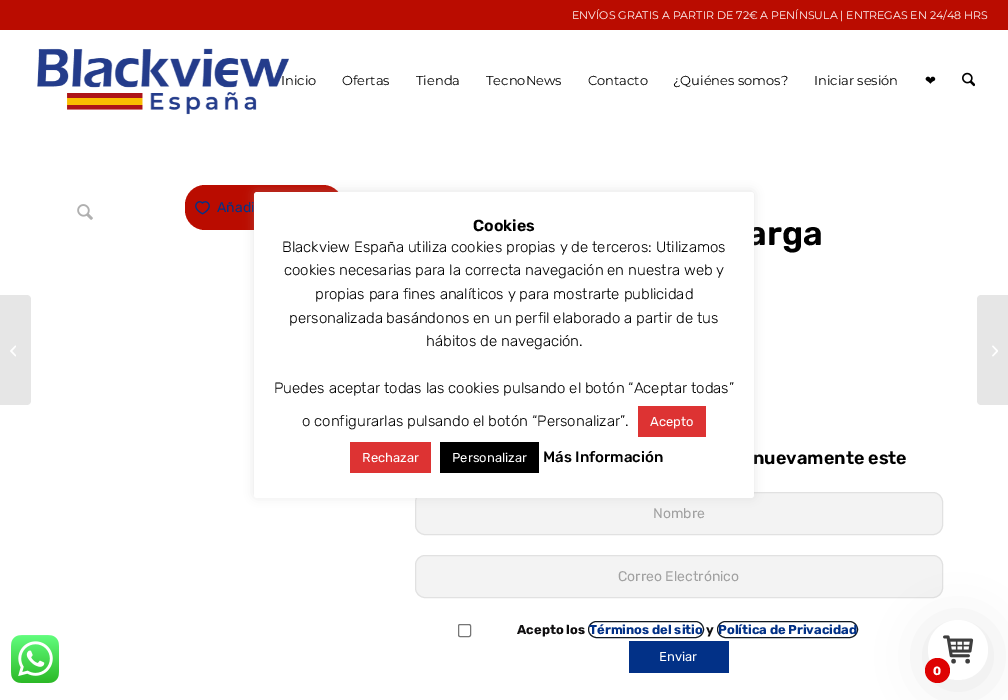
%!PS-Adobe-3.0
%%BoundingBox: 0 0 1008 700
%%LanguageLevel: 3
%%Pages: 1
%%EndComments
%%BeginProlog
/setink { 3 { 255 div 3 1 roll } repeat setrgbcolor } def
/usefont { [ exch dup neg 0 0 3 -1 roll 0 0 ] selectfont } def
/drawtext { setink usefont moveto show } def
/fillbox { setink rectfill } def
/setalpha { dup .setfillconstantalpha .setstrokeconstantalpha } def
/disc { newpath 0 360 arc closepath } def
/rrect { 5 dict begin { /r /h /w /y /x } { exch def } forall
  x r add y moveto x w add y 2 copy h add r arct x w add y h add x 1 index r arct
  x y h add x y r arct x y 2 copy exch w add exch r arct closepath end } def
/softshadow { 12 dict begin { /a /b /q /h /w /y /x } { exch def } forall gsave /was 0 def
  9 -2 -9 { dup b mul 4 div /e exch def 1 sub .425 mul 2.718 exch exp 1 add a .99 .min exch div /now exch def
    1 1 now sub 1 was sub div sub setalpha /was now def
    w h .min e 2 mul add 0 gt { x e sub y e sub w e 2 mul add h e 2 mul add
      q e add b .6 mul add w h .min 2 div e add .min 0 .max rrect fill } if } for grestore end } def
/drawimage { 5 dict begin { /h /w /y /x /name } { exch def } forall
  gsave x y translate w h scale
  w h 8 [w 0 0 h 0 0] name (r) file false 3 colorimage grestore end } def
%%EndProlog
%%BeginSetup
<< /PageSize [1008 700] /PageUsesTransparency true >> setpagedevice
%%EndSetup
%%Page: 1 1
0 .pushpdf14devicefilter
0 700 translate 1 -1 scale
4 setmiterlimit
0 0 1008 700 255 255 255 fillbox
0 0 1008 30 186 12 0 fillbox
(ENVÍOS GRATIS A PARTIR DE 72€ A PENÍNSULA | ENTREGAS EN 24/48 HRS) 572 19 /Montserrat-Thin 11 255 255 255 drawtext
(assets/img1.rgb) 37 48 252 67 drawimage
(Inicio) 281 85 /Montserrat-Thin 13 0 0 0 drawtext
(Ofertas) 342 85 /Montserrat-Thin 13 0 0 0 drawtext
(Tienda) 416 85 /Montserrat-Thin 13 0 0 0 drawtext
(TecnoNews) 486 85 /Montserrat-Thin 13 0 0 0 drawtext
(Contacto) 588 85 /Montserrat-Thin 13 0 0 0 drawtext
(¿Quiénes somos?) 673 85 /Montserrat-Thin 13 0 0 0 drawtext
(Iniciar sesión) 814 85 /Montserrat-Thin 13 0 0 0 drawtext
(❤) 925 85 /DejaVuSans-Regular 13 0 0 0 drawtext
(assets/img2.rgb) 962 72 13 15 drawimage
230 230 230 setink
0 295 moveto 27 295 lineto 29 295 31 297 31 299 curveto 31 401 lineto 31 403 29 405 27 405 curveto 0 405 lineto closepath fill
(assets/img3.rgb) 10 345 6 12 drawimage
(assets/img4.rgb) 77 204 16 16 drawimage
186 12 0 setink
185 185 158 45 20 rrect fill
(assets/img5.rgb) 195 201 15 14 drawimage
(Añadi) 217 212 /Rubik-Regular 14 2 49 135 drawtext
(arga) 747 245 /Rubik-SemiBold 34 0 0 0 drawtext
(nuevamente este) 753 464 /Rubik-SemiBold 18 0 0 0 drawtext
243 243 243 setink
415.5 492.5 527 42 9.5 rrect gsave fill grestore
225 225 225 setink
stroke
(Nombre) 653 518 /Rubik-Regular 14 161 161 161 drawtext
243 243 243 setink
415.5 555.5 527 42 9.5 rrect gsave fill grestore
225 225 225 setink
stroke
(Correo Electrónico) 618 581 /Rubik-Regular 14 161 161 161 drawtext
118 118 118 setink
458.5 624.5 12 12 1.5 rrect stroke
(Acepto los) 517 634 /Rubik-Bold 12.9 15 14 15 drawtext
16 24 32 setink
588.5 621.5 115 16 8 rrect stroke
(Términos del sitio) 589 634 /Rubik-Bold 12.9 2 49 135 drawtext
(y) 706 634 /Rubik-Bold 12.9 15 14 15 drawtext
16 24 32 setink
717.5 621.5 140 16 8 rrect stroke
(Política de Privacidad) 718 634 /Rubik-Bold 12.9 2 49 135 drawtext
629 641 100 32 2 49 135 fillbox
(Enviar) 659 661 /Rubik-Regular 13 255 255 255 drawtext
230 230 230 setink
981 295 moveto 1008 295 lineto 1008 405 lineto 981 405 lineto 979 405 977 403 977 401 curveto 977 299 lineto 977 297 979 295 981 295 curveto closepath fill
(assets/img6.rgb) 992 345 6 12 drawimage
172 171 171 setink
254 191 500 306 3 5 0.3 softshadow
255 255 255 setink
254 192 500 306 3 rrect fill
(Cookies) 473 231 /Rubik-SemiBold 16 0 0 0 drawtext
(Blackview España utiliza cookies propias y de terceros: Utilizamos) 282 252 /Rubik-Light 15 0 0 0 drawtext
(cookies necesarias para la correcta navegación en nuestra web y) 284 275 /Rubik-Light 15 0 0 0 drawtext
(propias para fines analíticos y para mostrarte publicidad) 315 299 /Rubik-Light 15 0 0 0 drawtext
(personalizada basándonos en un perfil elaborado a partir de tus) 289 323 /Rubik-Light 15 0 0 0 drawtext
(hábitos de navegación.) 426 346 /Rubik-Light 15 0 0 0 drawtext
(Puedes aceptar todas las cookies pulsando el botón “Aceptar todas”) 274 393 /Rubik-Light 15 0 0 0 drawtext
(o configurarlas pulsando el botón “Personalizar”.) 302 426 /Rubik-Light 15 0 0 0 drawtext
638 406 68 31 221 51 51 fillbox
(Acepto) 650 426 /Rubik-Regular 13 255 255 255 drawtext
350 442 81 31 221 51 51 fillbox
(Rechazar) 362 462 /Rubik-Regular 13 255 255 255 drawtext
440 442 99 31 0 0 0 fillbox
(Personalizar) 452 462 /Rubik-Regular 13 255 255 255 drawtext
(Más Información) 543 462 /Rubik-Medium 15 0 0 0 drawtext
(assets/img7.rgb) 11 635 48 48 drawimage
928 626 60 60 30 24 0.1 softshadow
255 255 255 setink
958 650 30 disc fill
(assets/img8.rgb) 943 635 31 29 drawimage
222 2 2 setink
937.5 670.5 12.5 disc fill
(0) 933 675 /Rubik-Bold 12 255 255 255 drawtext
.poppdf14devicefilter showpage
%%EOF
